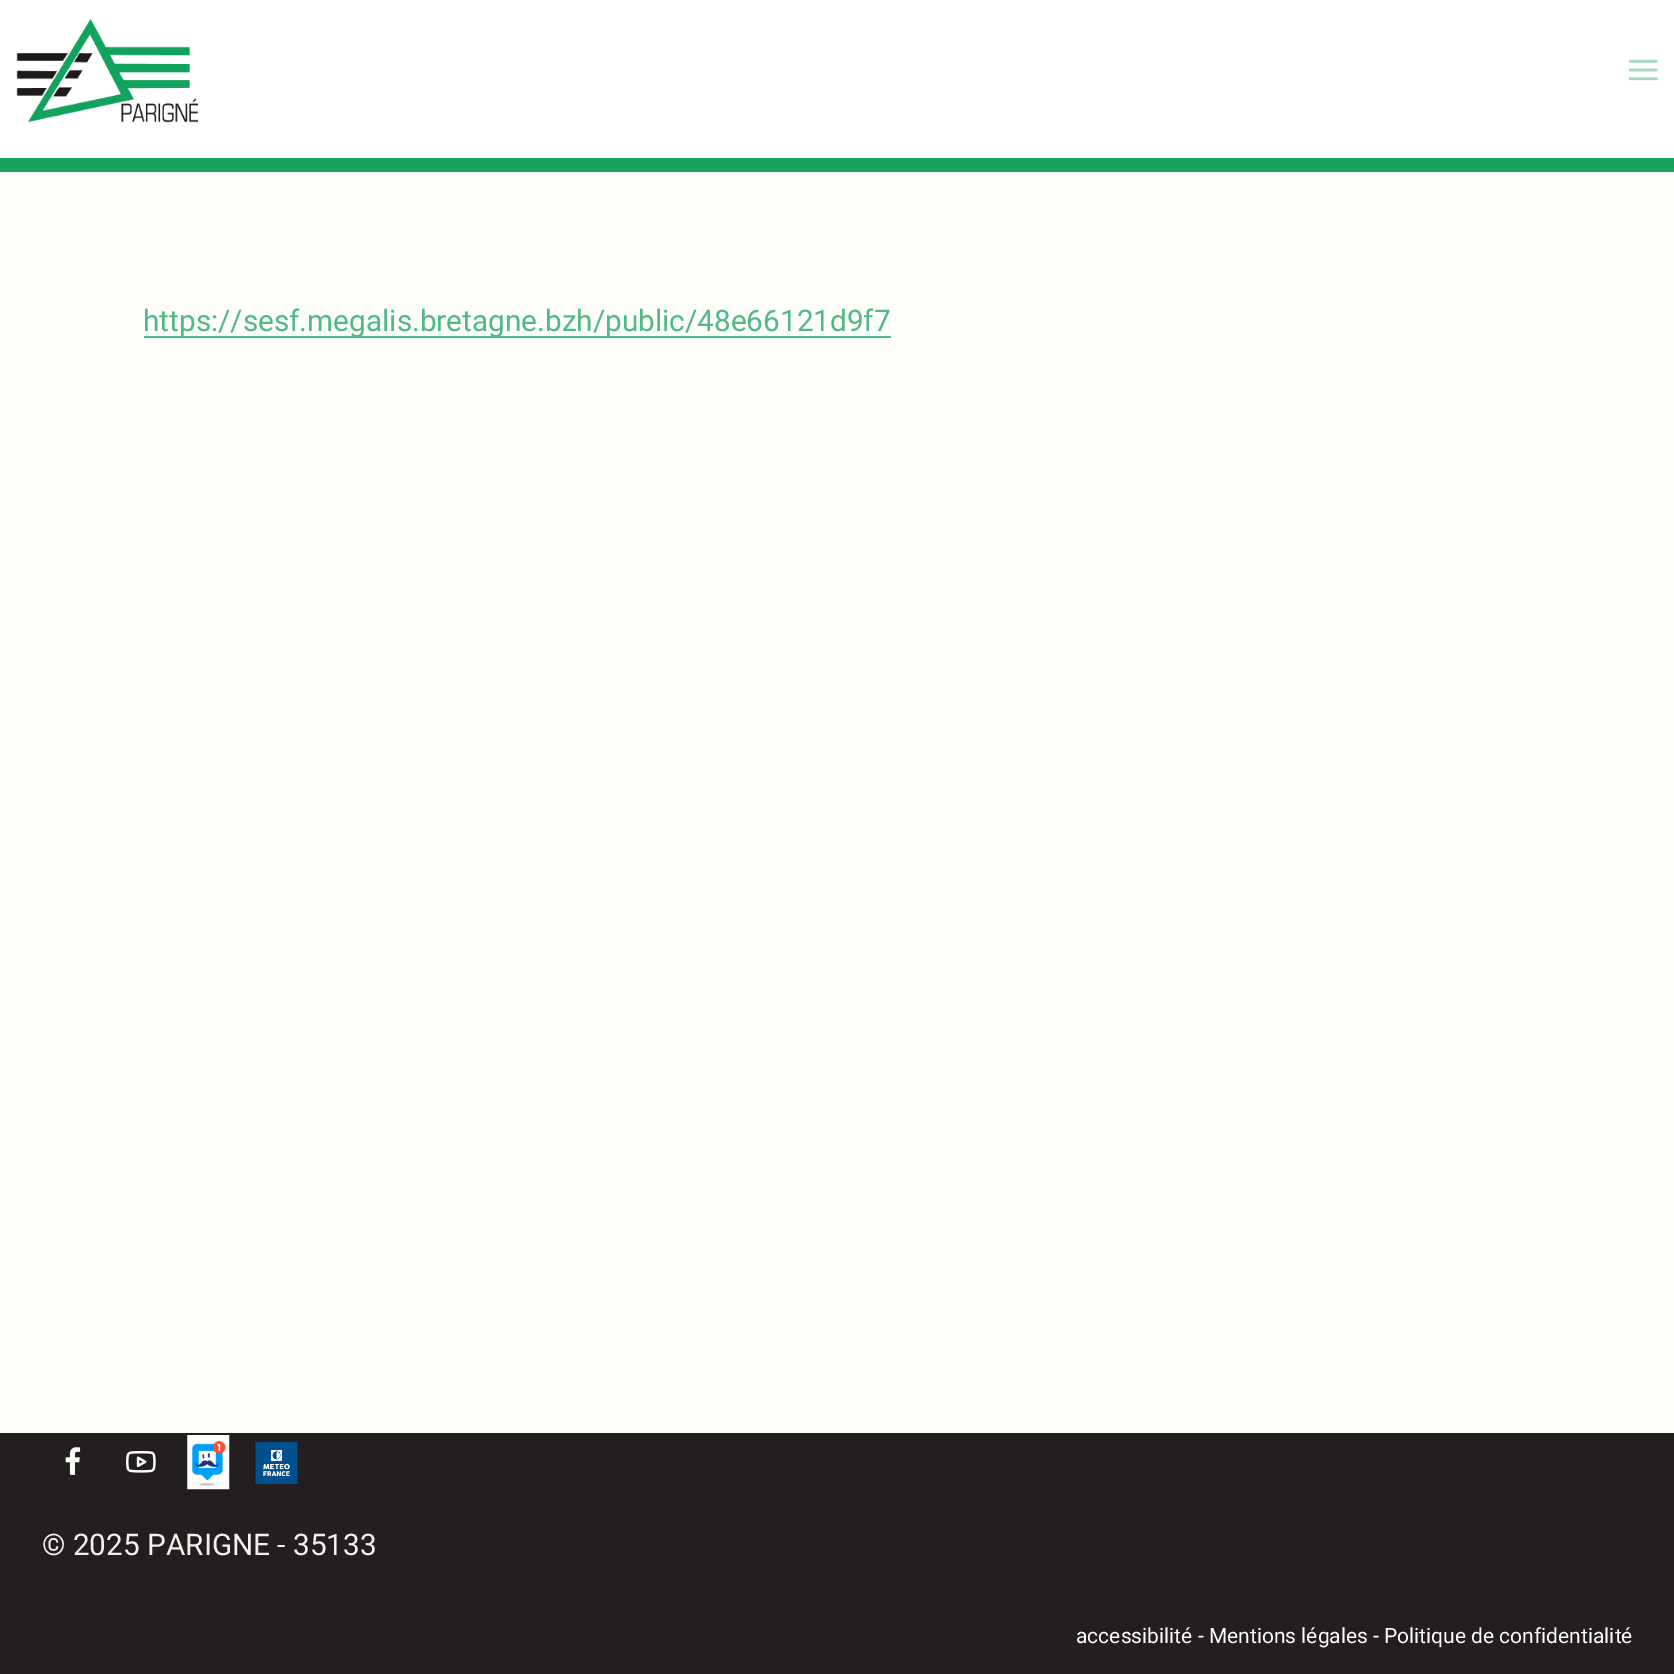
%!PS-Adobe-3.0
%%BoundingBox: 0 0 1674 1674
%%LanguageLevel: 3
%%Pages: 1
%%EndComments
%%BeginProlog
/setink { 3 { 255 div 3 1 roll } repeat setrgbcolor } def
/usefont { [ exch dup neg 0 0 3 -1 roll 0 0 ] selectfont } def
/drawtext { setink usefont moveto show } def
/fillbox { setink rectfill } def
/drawimage { 5 dict begin { /h /w /y /x /name } { exch def } forall
  gsave x y translate w h scale
  w h 8 [w 0 0 h 0 0] name (r) file false 3 colorimage grestore end } def
%%EndProlog
%%BeginSetup
<< /PageSize [1674 1674] >> setpagedevice
%%EndSetup
%%Page: 1 1
0 1674 translate 1 -1 scale
4 setmiterlimit
0 0 1674 1674 253 253 250 fillbox
0 0 1674 158 255 255 255 fillbox
0 158 1674 14 24 162 94 fillbox
(assets/img1.rgb) 16 18 183 105 drawimage
(assets/img2.rgb) 1628 59 30 22 drawimage
144 336 747 2 80 185 133 fillbox
(https://sesf.megalis.bretagne.bzh/public/48e66121d9f7) 143 331 /Roboto-Regular 29.75 80 185 133 drawtext
0 1433 1674 241 35 31 32 fillbox
(assets/img3.rgb) 65 1447 16 28 drawimage
(assets/img4.rgb) 126 1451 30 22 drawimage
(assets/img5.rgb) 187 1435 43 55 drawimage
(assets/img6.rgb) 255 1442 43 42 drawimage
(© 2025 PARIGNE - 35133) 42 1555 /Roboto-Regular 29.75 242 241 236 drawtext
(accessibilité - Mentions légales - Politique de confidentialité) 1076 1643 /Roboto-Regular 21 253 253 250 drawtext
showpage
%%EOF
